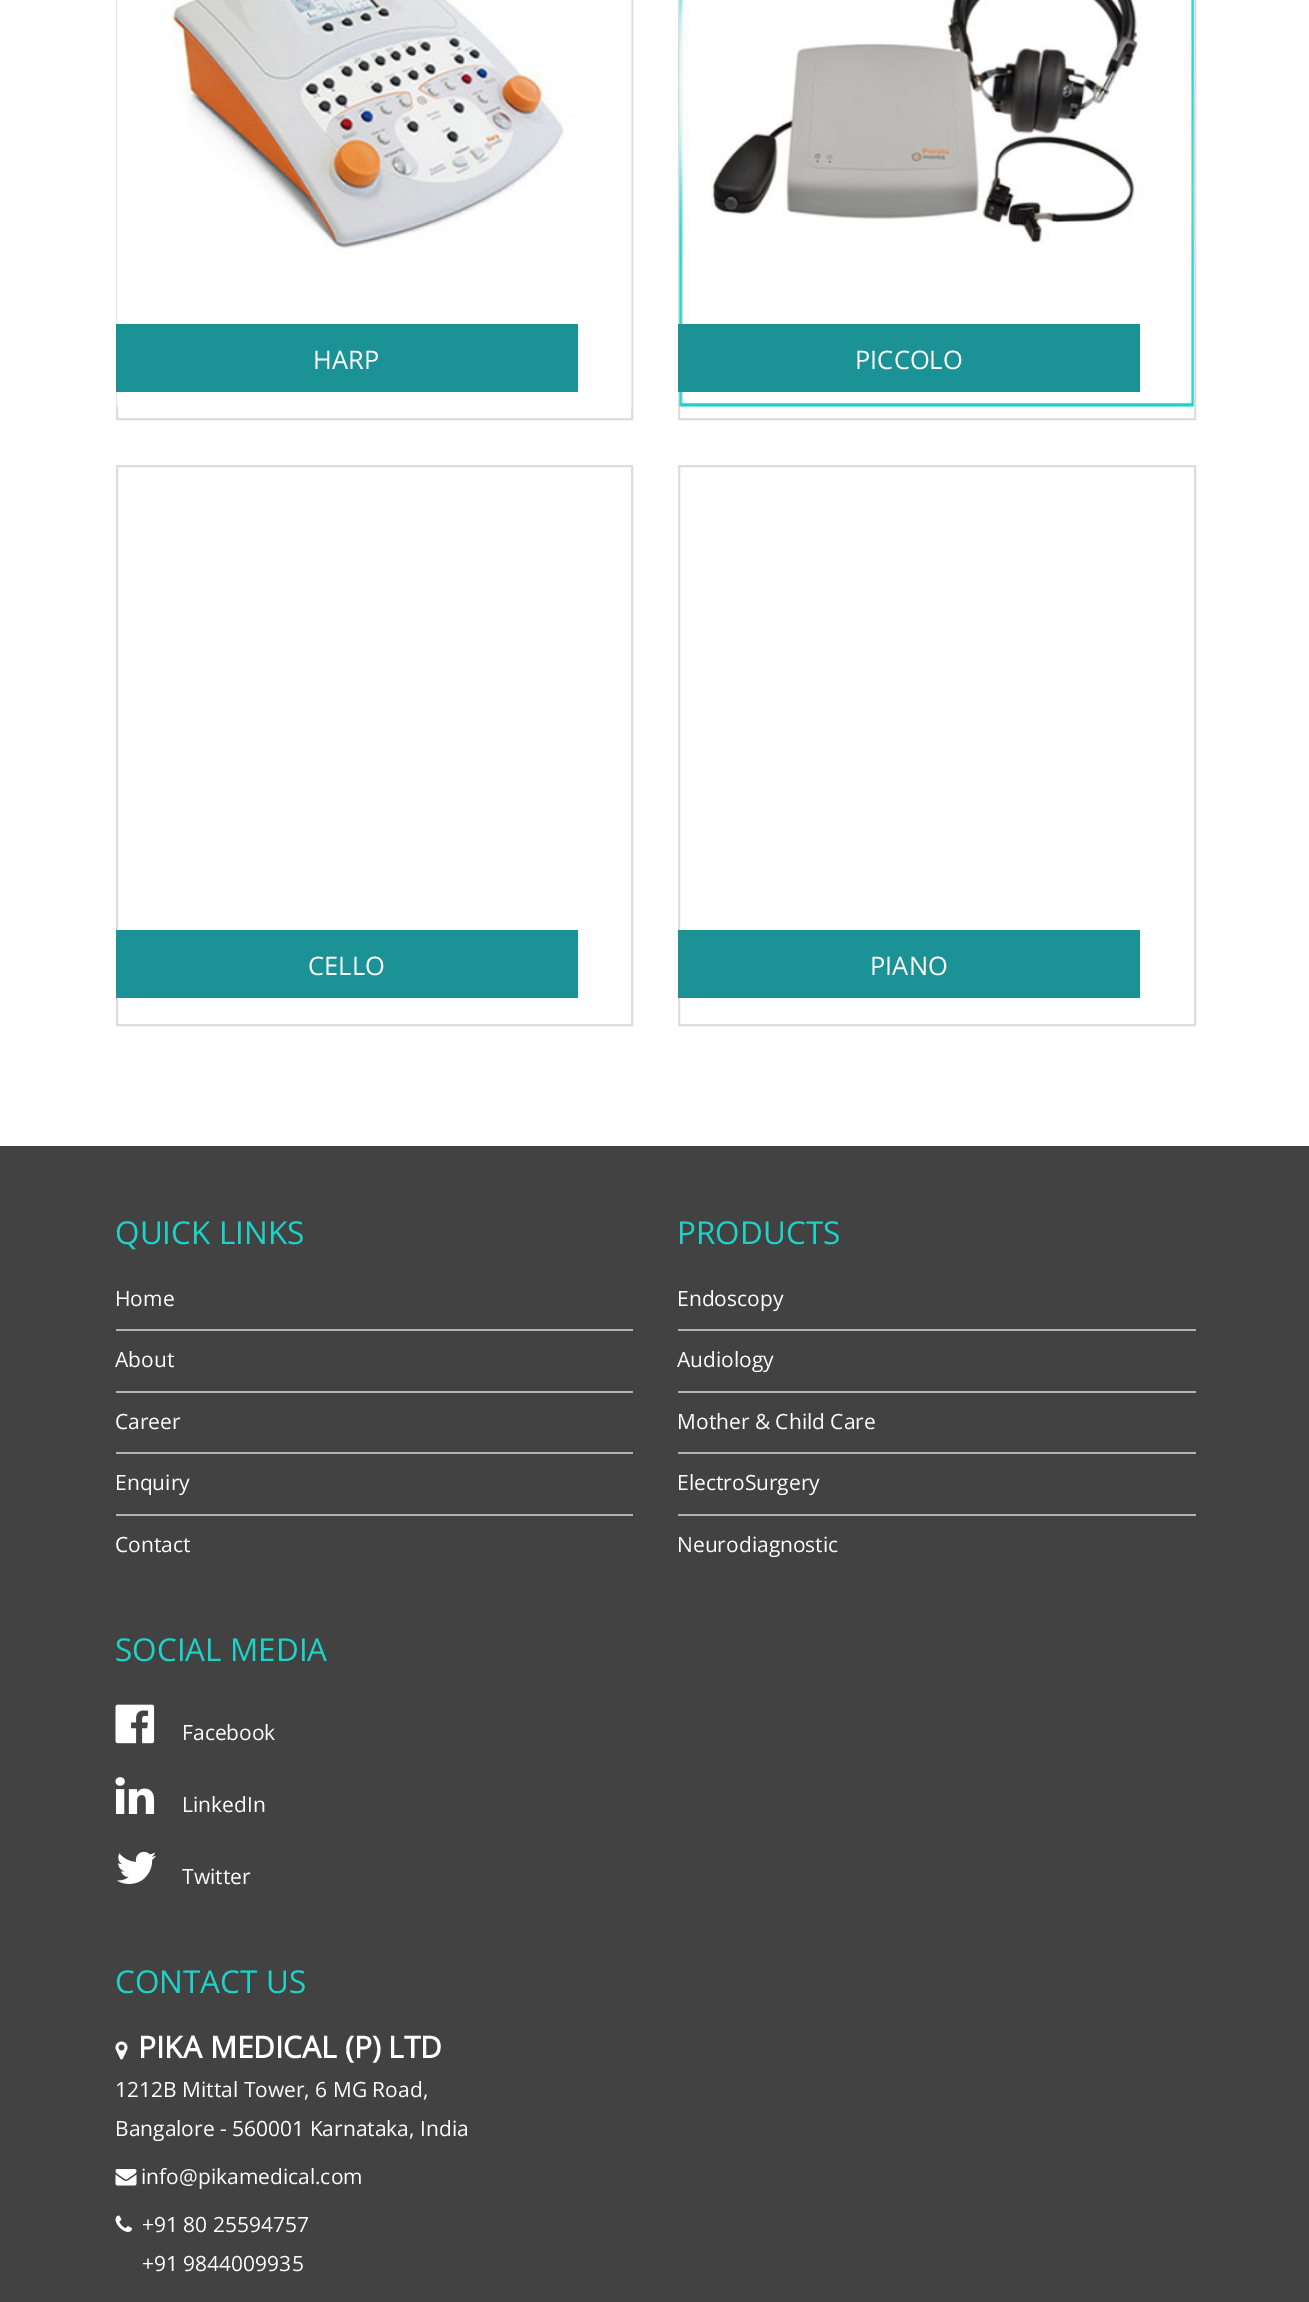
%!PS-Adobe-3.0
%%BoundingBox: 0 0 1309 2302
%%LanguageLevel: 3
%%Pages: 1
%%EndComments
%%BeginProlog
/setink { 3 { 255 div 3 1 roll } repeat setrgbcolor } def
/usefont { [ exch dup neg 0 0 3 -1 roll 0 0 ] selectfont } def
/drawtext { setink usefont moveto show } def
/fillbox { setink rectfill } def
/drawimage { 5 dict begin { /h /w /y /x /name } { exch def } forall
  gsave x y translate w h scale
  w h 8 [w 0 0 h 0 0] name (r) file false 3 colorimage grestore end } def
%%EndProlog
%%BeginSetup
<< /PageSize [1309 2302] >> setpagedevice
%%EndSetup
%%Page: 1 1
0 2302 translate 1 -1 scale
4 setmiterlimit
0 0 1309 2302 255 255 255 fillbox
221 221 221 setink
2 setlinewidth
117 -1 515 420 rectstroke
(assets/img1.rgb) 116 0 516 407 drawimage
116 324 462 68 27 146 150 fillbox
(HARP) 313 369 /OpenSans-Regular 25.5 255 255 255 drawtext
221 221 221 setink
679 -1 516 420 rectstroke
(assets/img2.rgb) 679 0 515 407 drawimage
678 324 462 68 27 146 150 fillbox
(PICCOLO) 855 369 /OpenSans-Regular 25.5 255 255 255 drawtext
221 221 221 setink
117 466 515 559 rectstroke
116 930 462 68 27 146 150 fillbox
(CELLO) 308 975 /OpenSans-Regular 25.5 255 255 255 drawtext
221 221 221 setink
679 466 516 559 rectstroke
678 930 462 68 27 146 150 fillbox
(PIANO) 870 975 /OpenSans-Regular 25.5 255 255 255 drawtext
0 1146 1309 1156 66 66 66 fillbox
(QUICK LINKS) 115 1244 /OpenSans-Regular 31.5 30 210 200 drawtext
116 1329 517 2 179 179 179 fillbox
(Home) 115 1306 /OpenSans-Regular 21 255 255 255 drawtext
116 1391 517 2 179 179 179 fillbox
(About) 115 1367 /OpenSans-Regular 21 255 255 255 drawtext
116 1452 517 2 179 179 179 fillbox
(Career) 115 1429 /OpenSans-Regular 21 255 255 255 drawtext
116 1514 517 2 179 179 179 fillbox
(Enquiry) 115 1490 /OpenSans-Regular 21 255 255 255 drawtext
(Contact) 115 1552 /OpenSans-Regular 21 255 255 255 drawtext
(PRODUCTS) 677 1244 /OpenSans-Regular 31.5 30 210 200 drawtext
678 1329 518 2 179 179 179 fillbox
(Endoscopy) 677 1306 /OpenSans-Regular 21 255 255 255 drawtext
678 1391 518 2 179 179 179 fillbox
(Audiology) 677 1367 /OpenSans-Regular 21 255 255 255 drawtext
678 1452 518 2 179 179 179 fillbox
(Mother & Child Care) 677 1429 /OpenSans-Regular 21 255 255 255 drawtext
678 1514 518 2 179 179 179 fillbox
(ElectroSurgery) 677 1490 /OpenSans-Regular 21 255 255 255 drawtext
(Neurodiagnostic) 677 1552 /OpenSans-Regular 21 255 255 255 drawtext
(SOCIAL MEDIA) 115 1661 /OpenSans-Regular 31.5 30 210 200 drawtext
(assets/img3.rgb) 115 1704 40 40 drawimage
(Facebook) 182 1740 /OpenSans-Regular 21 255 255 255 drawtext
(assets/img4.rgb) 115 1777 40 37 drawimage
(LinkedIn) 182 1812 /OpenSans-Regular 21 255 255 255 drawtext
(assets/img5.rgb) 116 1851 40 33 drawimage
(Twitter) 182 1884 /OpenSans-Regular 21 255 255 255 drawtext
(CONTACT US) 115 1993 /OpenSans-Regular 31.5 30 210 200 drawtext
(assets/img6.rgb) 115 2041 13 19 drawimage
(PIKA MEDICAL \(P\) LTD) 138 2058 /OpenSans-Bold 30 255 255 255 drawtext
(1212B Mittal Tower, 6 MG Road,) 115 2097 /OpenSans-Regular 21 255 255 255 drawtext
(Bangalore - 560001 Karnataka, India) 115 2136 /OpenSans-Regular 21 255 255 255 drawtext
(assets/img7.rgb) 115 2169 22 17 drawimage
(info@pikamedical.com) 141 2184 /OpenSans-Regular 21 255 255 255 drawtext
(assets/img8.rgb) 115 2215 17 17 drawimage
(+91 80 25594757) 142 2232 /OpenSans-Regular 21 255 255 255 drawtext
(+91 9844009935) 142 2271 /OpenSans-Regular 21 255 255 255 drawtext
showpage
%%EOF
